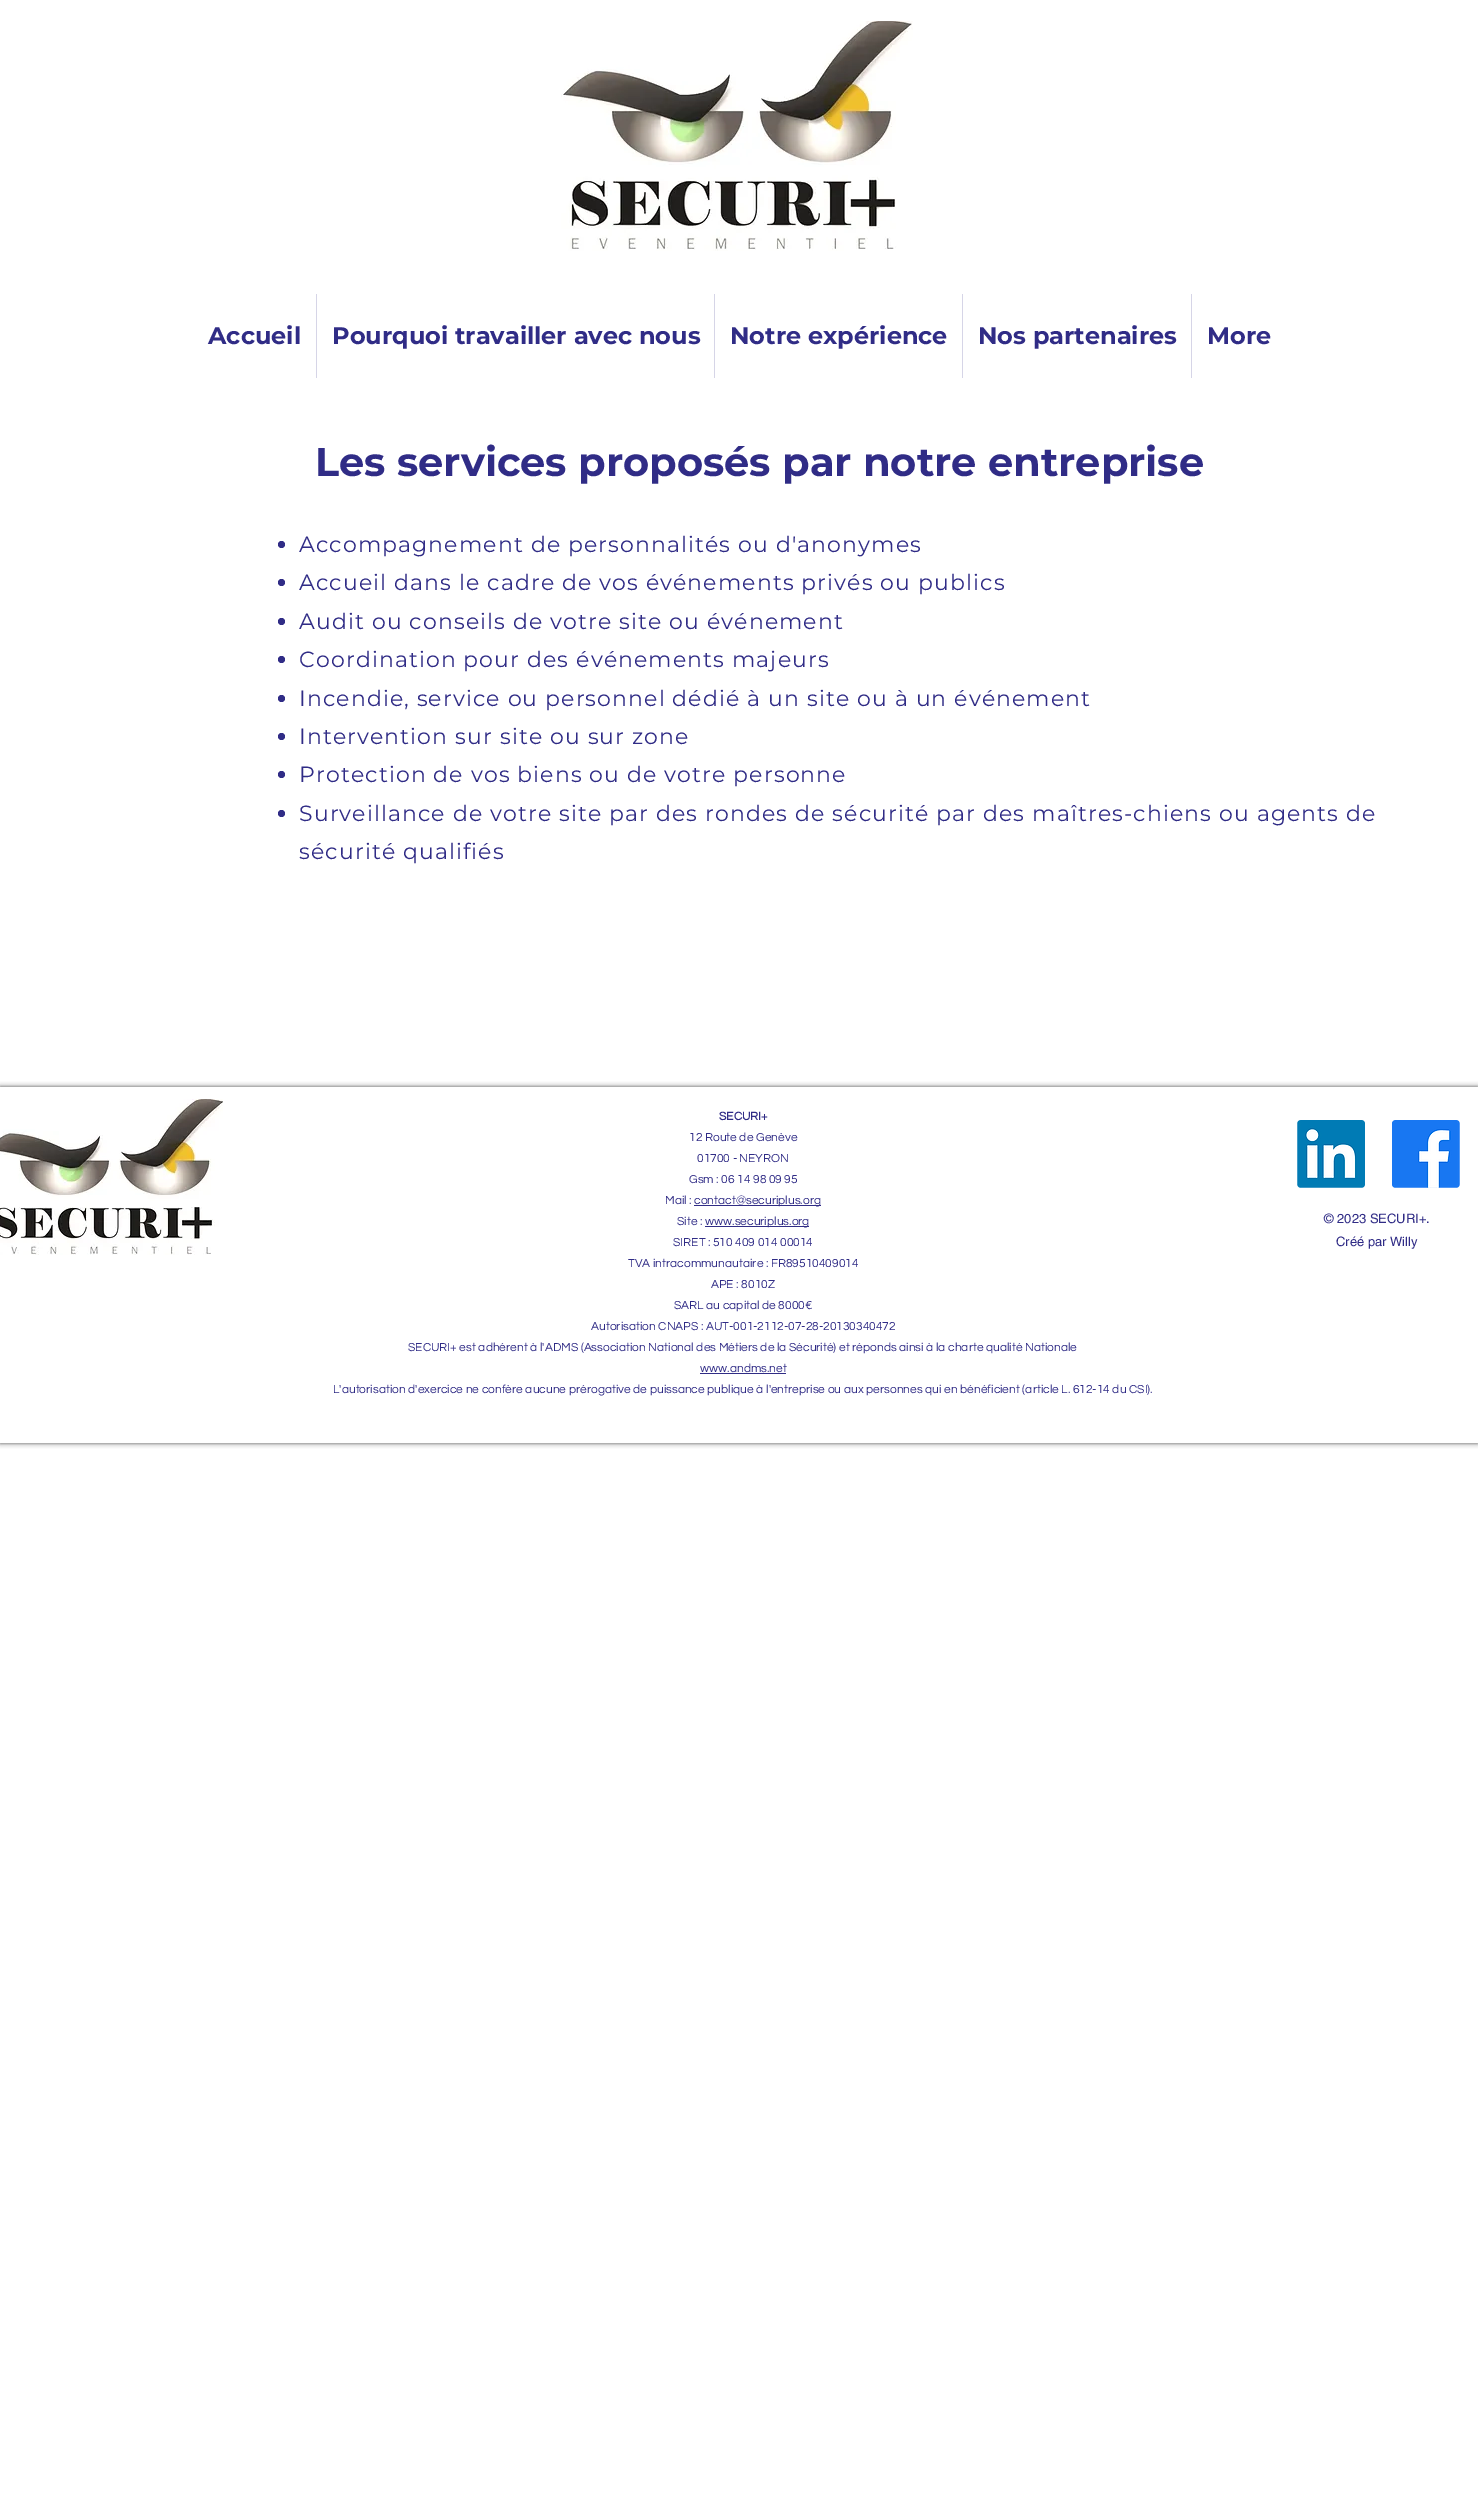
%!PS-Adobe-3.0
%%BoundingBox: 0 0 1478 2518
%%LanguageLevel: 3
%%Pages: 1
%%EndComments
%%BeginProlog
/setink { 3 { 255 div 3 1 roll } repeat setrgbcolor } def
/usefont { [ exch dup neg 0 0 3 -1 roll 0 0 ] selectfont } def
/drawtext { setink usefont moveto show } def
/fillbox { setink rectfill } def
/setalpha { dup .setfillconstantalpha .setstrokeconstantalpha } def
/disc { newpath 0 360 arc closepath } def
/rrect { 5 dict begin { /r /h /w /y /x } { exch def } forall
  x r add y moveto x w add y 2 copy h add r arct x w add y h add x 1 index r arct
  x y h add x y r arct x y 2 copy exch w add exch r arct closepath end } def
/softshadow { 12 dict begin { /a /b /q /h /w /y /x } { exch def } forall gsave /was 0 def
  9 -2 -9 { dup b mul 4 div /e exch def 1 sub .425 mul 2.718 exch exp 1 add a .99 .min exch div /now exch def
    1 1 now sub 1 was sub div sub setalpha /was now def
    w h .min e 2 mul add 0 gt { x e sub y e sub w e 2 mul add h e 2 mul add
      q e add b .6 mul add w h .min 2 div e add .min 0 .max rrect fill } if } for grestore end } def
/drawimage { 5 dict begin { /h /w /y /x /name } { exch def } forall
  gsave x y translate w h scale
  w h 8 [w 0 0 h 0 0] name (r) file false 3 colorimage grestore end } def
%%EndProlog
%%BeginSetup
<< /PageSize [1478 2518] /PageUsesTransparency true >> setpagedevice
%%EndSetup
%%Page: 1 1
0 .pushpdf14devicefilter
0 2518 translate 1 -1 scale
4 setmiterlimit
0 0 1478 2518 255 255 255 fillbox
(assets/img1.rgb) 561 21 352 230 drawimage
(Accueil) 208 344 /Montserrat-Bold 24 48 44 134 drawtext
316 294 1 84 214 213 231 fillbox
(Pourquoi travailler avec nous) 332 344 /Montserrat-Bold 24 48 44 134 drawtext
714 294 1 84 214 213 231 fillbox
(Notre expérience) 730 344 /Montserrat-Bold 24 48 44 134 drawtext
962 294 1 84 214 213 231 fillbox
(Nos partenaires) 978 344 /Montserrat-Bold 24 48 44 134 drawtext
1191 294 1 84 214 213 231 fillbox
(More) 1207 344 /Montserrat-Bold 24 48 44 134 drawtext
(Les services proposés par notre entreprise) 315 476 /Montserrat-Bold 40 48 44 134 drawtext
281.5 544.5 3.5 disc fill
/Montserrat-Regular 22 usefont
299 552 moveto 1.1 0 (Accompagnement de personnalités ou d'anonymes) ashow
281.5 582.5 3.5 disc fill
299 590 moveto 1.1 0 (Accueil dans le cadre de vos événements privés ou publics) ashow
281.5 621.5 3.5 disc fill
299 629 moveto 1.1 0 (Audit ou conseils de votre site ou événement) ashow
281.5 659.5 3.5 disc fill
299 667 moveto 1.1 0 (Coordination pour des événements majeurs) ashow
281.5 698.5 3.5 disc fill
299 706 moveto 1.1 0 (Incendie, service ou personnel dédié à un site ou à un événement) ashow
281.5 736.5 3.5 disc fill
299 744 moveto 1.1 0 (Intervention sur site ou sur zone) ashow
281.5 774.5 3.5 disc fill
299 782 moveto 1.1 0 (Protection de vos biens ou de votre personne) ashow
281.5 813.5 3.5 disc fill
299 821 moveto 1.1 0 (Surveillance de votre site par des rondes de sécurité par des maîtres-chiens ou agents de) ashow
299 859 moveto 1.1 0 (sécurité qualifiés) ashow
gsave
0 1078 moveto 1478 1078 lineto 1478 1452 lineto 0 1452 lineto closepath 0 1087 moveto 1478 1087 lineto 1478 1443 lineto 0 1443 lineto closepath eoclip newpath
0 0 0 setink
0 1087 1478 356 0 2.5 0.7 softshadow
grestore
(assets/img2.rgb) 0 1099 223 156 drawimage
(SECURI+) 719 1120 /Questrial-Bold 12 48 44 134 drawtext
(12 Route de Genève) 689 1141 /Questrial-Regular 12 48 44 134 drawtext
(01700 - NEYRON) 697 1162 /Questrial-Regular 12 48 44 134 drawtext
(Gsm : 06 14 98 09 95) 689 1183 /Questrial-Regular 12 48 44 134 drawtext
(Mail :) 665 1204 /Questrial-Regular 12 48 44 134 drawtext
694 1205 127 1 48 44 134 fillbox
(contact@securiplus.org) 694 1204 /Questrial-Regular 12 48 44 134 drawtext
(Site :) 677 1225 /Questrial-Regular 12 48 44 134 drawtext
705 1226 104 1 48 44 134 fillbox
(www.securiplus.org) 705 1225 /Questrial-Regular 12 48 44 134 drawtext
(SIRET : 510 409 014 00014) 673 1246 /Questrial-Regular 12 48 44 134 drawtext
(TVA intracommunautaire : FR89510409014) 628 1267 /Questrial-Regular 12 48 44 134 drawtext
(APE : 8010Z) 711 1288 /Questrial-Regular 12 48 44 134 drawtext
(SARL au capital de 8000€) 674 1309 /Questrial-Regular 12 48 44 134 drawtext
(Autorisation CNAPS : AUT-001-2112-07-28-20130340472) 591 1330 /Questrial-Regular 12 48 44 134 drawtext
(SECURI+ est adhérent à l'ADMS \(Association National des Métiers de la Sécurité\) et réponds ainsi à la charte qualité Nationale) 408 1351 /Questrial-Regular 12 48 44 134 drawtext
(www.andms.net) 700 1372 /Questrial-Regular 12 48 44 134 drawtext
700 1373 86 1 48 44 134 fillbox
(L'autorisation d'exercice ne confère aucune prérogative de puissance publique à l'entreprise ou aux personnes qui en bénéficient \(article L. 612-14 du CSI\).) 333 1393 /Questrial-Regular 12 48 44 134 drawtext
(assets/img3.rgb) 1297 1120 68 68 drawimage
(assets/img4.rgb) 1392 1120 68 68 drawimage
(© 2023 SECURI+.) 1324 1223 /helvetica-Regular 13 48 44 134 drawtext
(Créé par Willy) 1336 1246 /helvetica-Regular 13 48 44 134 drawtext
.poppdf14devicefilter showpage
%%EOF
